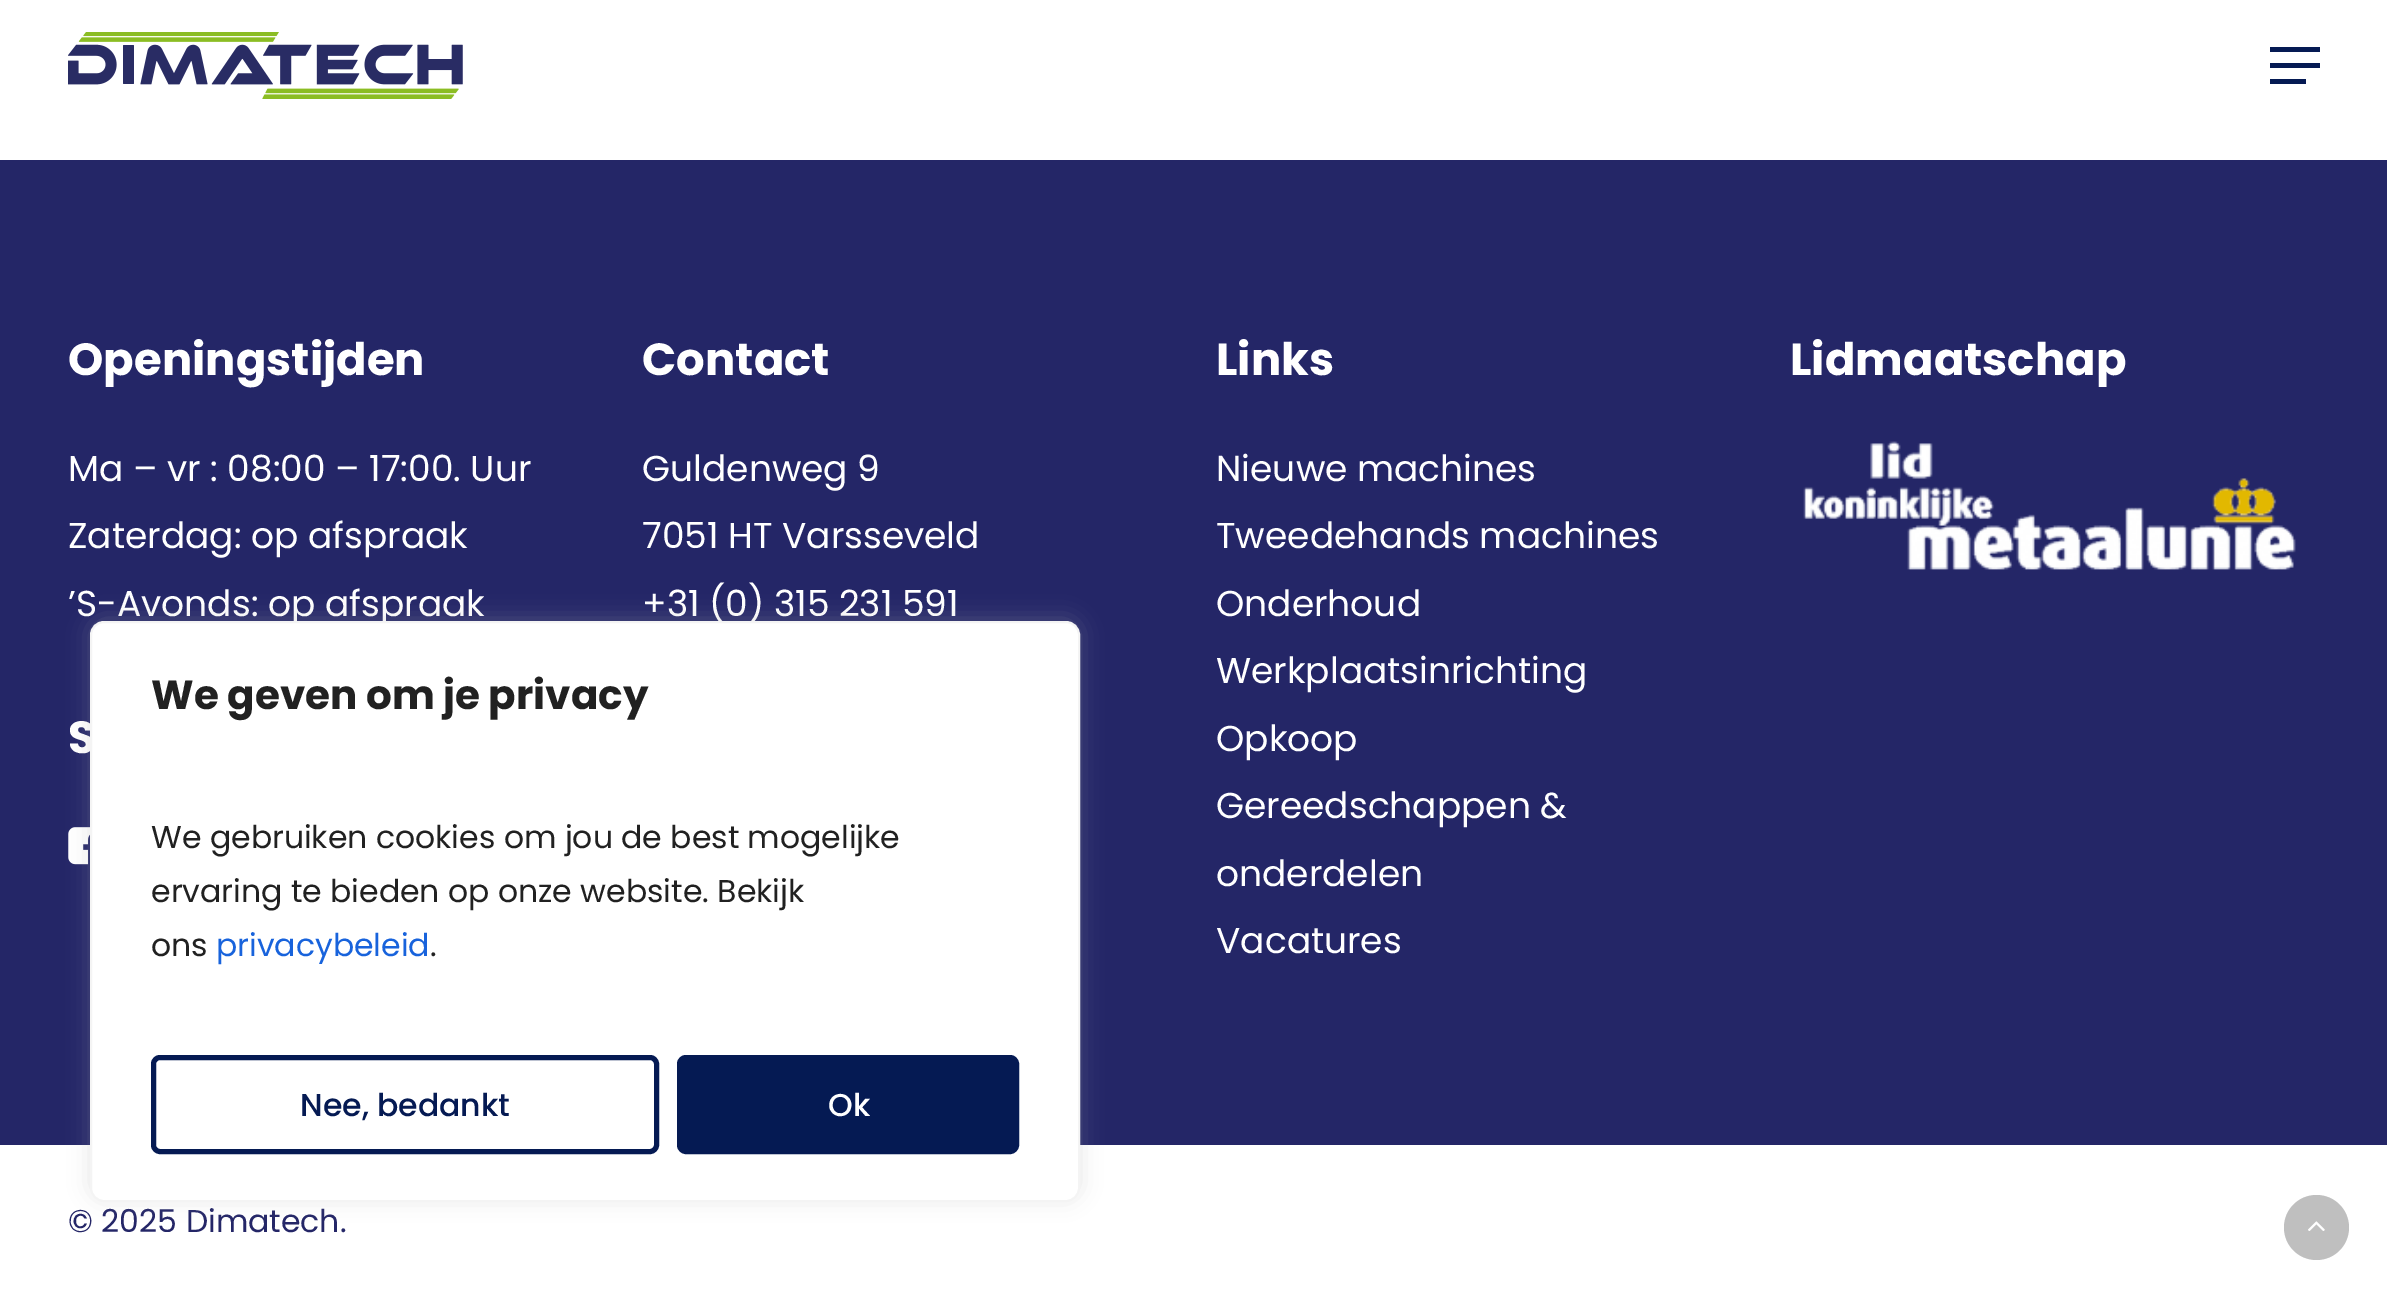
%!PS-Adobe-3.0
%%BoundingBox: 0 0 2387 1291
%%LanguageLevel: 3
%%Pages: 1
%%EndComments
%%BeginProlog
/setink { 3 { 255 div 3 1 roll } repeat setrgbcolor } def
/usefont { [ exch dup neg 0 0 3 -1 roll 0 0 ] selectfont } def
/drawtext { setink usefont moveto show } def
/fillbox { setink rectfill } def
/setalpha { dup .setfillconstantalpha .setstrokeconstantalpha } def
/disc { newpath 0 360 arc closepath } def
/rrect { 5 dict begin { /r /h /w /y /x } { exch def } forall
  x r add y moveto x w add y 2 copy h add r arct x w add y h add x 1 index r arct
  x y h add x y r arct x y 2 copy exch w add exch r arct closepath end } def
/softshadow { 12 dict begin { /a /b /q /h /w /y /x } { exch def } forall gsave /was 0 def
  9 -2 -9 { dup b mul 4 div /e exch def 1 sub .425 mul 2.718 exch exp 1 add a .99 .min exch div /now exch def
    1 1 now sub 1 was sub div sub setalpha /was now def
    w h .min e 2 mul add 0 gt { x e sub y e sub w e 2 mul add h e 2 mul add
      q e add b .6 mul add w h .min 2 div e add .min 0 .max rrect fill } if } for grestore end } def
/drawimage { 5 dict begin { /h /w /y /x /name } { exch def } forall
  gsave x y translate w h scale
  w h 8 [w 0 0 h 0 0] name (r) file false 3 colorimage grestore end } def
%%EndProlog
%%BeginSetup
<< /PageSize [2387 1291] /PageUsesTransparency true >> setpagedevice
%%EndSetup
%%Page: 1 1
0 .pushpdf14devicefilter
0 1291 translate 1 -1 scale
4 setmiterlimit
0 0 2387 1291 255 255 255 fillbox
(assets/img1.rgb) 68 32 395 67 drawimage
2270 47 50 5 5 26 83 fillbox
2270 79 36 5 5 26 83 fillbox
2270 63 50 5 5 26 83 fillbox
0 160 2387 985 36 38 103 fillbox
(Openingstijden) 68 375 /Poppins-Bold 45 255 255 255 drawtext
(Ma – vr : 08:00 – 17:00. Uur) 68 481 /Poppins-Regular 36 255 255 255 drawtext
(Zaterdag: op afspraak) 68 548 /Poppins-Regular 36 255 255 255 drawtext
(’S-Avonds: op afspraak) 68 616 /Poppins-Regular 36 255 255 255 drawtext
(S) 68 753 /Poppins-Bold 45 255 255 255 drawtext
(assets/img2.rgb) 68 827 22 38 drawimage
(Contact) 642 375 /Poppins-Bold 45 255 255 255 drawtext
(Guldenweg 9) 642 481 /Poppins-Regular 36 255 255 255 drawtext
(7051 HT Varsseveld) 642 548 /Poppins-Regular 36 255 255 255 drawtext
(+31 \(0\) 315 231 591) 642 616 /Poppins-Regular 36 255 255 255 drawtext
(Links) 1216 375 /Poppins-Bold 45 255 255 255 drawtext
(Nieuwe machines) 1216 481 /Poppins-Regular 36 255 255 255 drawtext
(Tweedehands machines) 1216 548 /Poppins-Regular 36 255 255 255 drawtext
(Onderhoud) 1216 616 /Poppins-Regular 36 255 255 255 drawtext
(Werkplaatsinrichting) 1216 683 /Poppins-Regular 36 255 255 255 drawtext
(Opkoop) 1216 751 /Poppins-Regular 36 255 255 255 drawtext
(Gereedschappen &) 1216 818 /Poppins-Regular 36 255 255 255 drawtext
(onderdelen) 1216 886 /Poppins-Regular 36 255 255 255 drawtext
(Vacatures) 1216 953 /Poppins-Regular 36 255 255 255 drawtext
(Lidmaatschap) 1790 375 /Poppins-Bold 45 255 255 255 drawtext
(assets/img3.rgb) 1803 441 493 129 drawimage
(© 2025 Dimatech.) 68 1232 /Poppins-Regular 31.5 36 38 103 drawtext
191 191 191 setink
2316.5 1227.5 32.5 disc fill
(assets/img4.rgb) 2308 1221 17 10 drawimage
172 171 171 setink
90 619 990 580 14 11 0.3 softshadow
255 255 255 setink
91 622 988 579 13 rrect gsave fill grestore
244 244 244 setink
2 setlinewidth
stroke
(We geven om je privacy) 151 709 /Poppins-Bold 40.5 33 33 33 drawtext
(We gebruiken cookies om jou de best mogelijke) 151 848 /Poppins-Regular 31.5 33 33 33 drawtext
(ervaring te bieden op onze website. Bekijk) 151 902 /Poppins-Regular 31.5 33 33 33 drawtext
(ons) 151 956 /Poppins-Regular 31.5 33 33 33 drawtext
(privacybeleid) 216 956 /Poppins-Regular 31.5 24 99 220 drawtext
(.) 430 956 /Poppins-Regular 31.5 33 33 33 drawtext
5 26 83 setink
5 setlinewidth
153.5 1057.5 503 94 6.5 rrect stroke
(Nee, bedankt) 300 1116 /Poppins-Medium 31.5 5 26 83 drawtext
679.5 1057.5 337 94 6.5 rrect gsave fill grestore
stroke
(Ok) 828 1116 /Poppins-Medium 31.5 255 255 255 drawtext
.poppdf14devicefilter showpage
%%EOF
